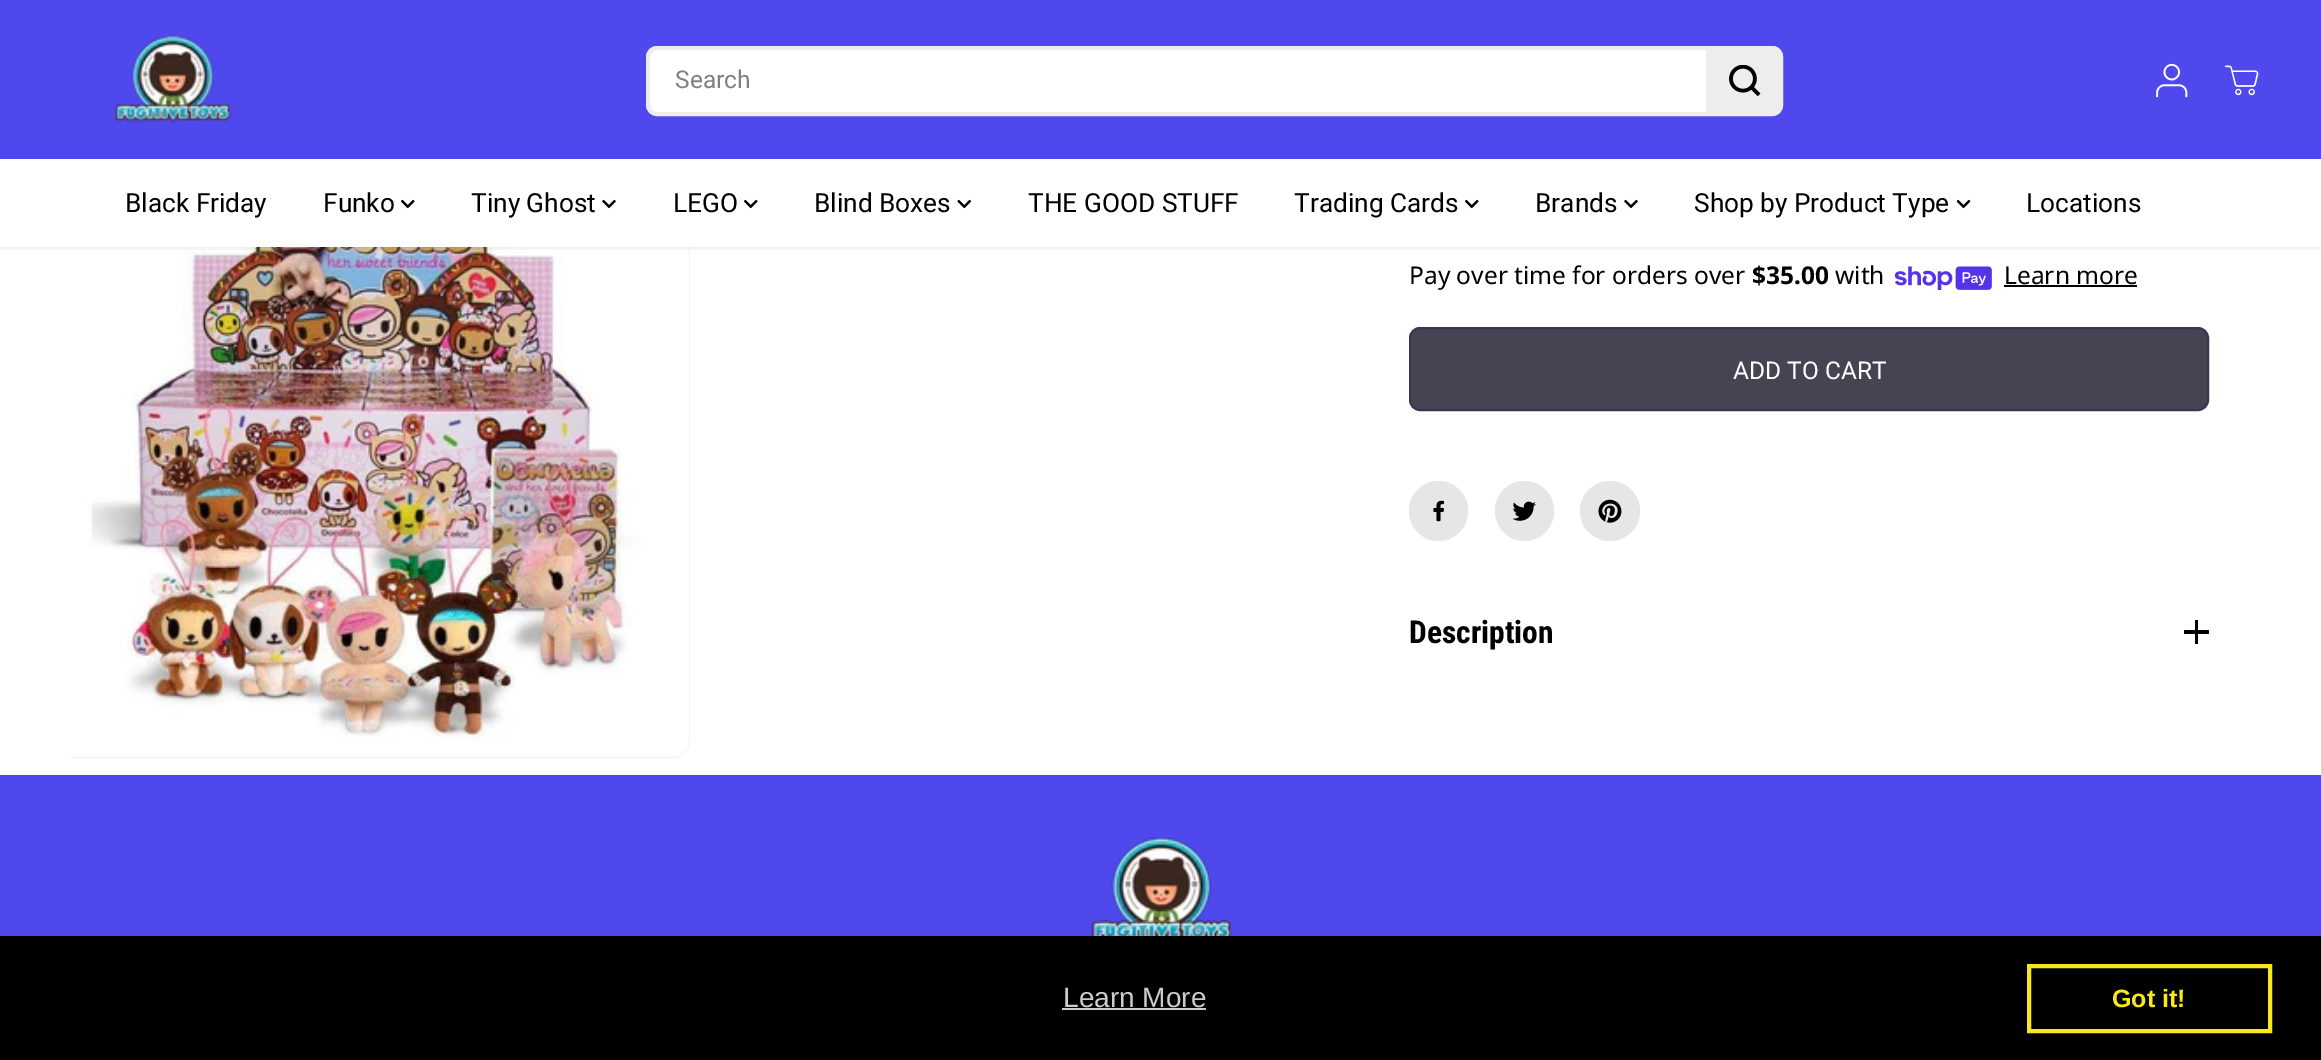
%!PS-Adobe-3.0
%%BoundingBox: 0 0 2321 1060
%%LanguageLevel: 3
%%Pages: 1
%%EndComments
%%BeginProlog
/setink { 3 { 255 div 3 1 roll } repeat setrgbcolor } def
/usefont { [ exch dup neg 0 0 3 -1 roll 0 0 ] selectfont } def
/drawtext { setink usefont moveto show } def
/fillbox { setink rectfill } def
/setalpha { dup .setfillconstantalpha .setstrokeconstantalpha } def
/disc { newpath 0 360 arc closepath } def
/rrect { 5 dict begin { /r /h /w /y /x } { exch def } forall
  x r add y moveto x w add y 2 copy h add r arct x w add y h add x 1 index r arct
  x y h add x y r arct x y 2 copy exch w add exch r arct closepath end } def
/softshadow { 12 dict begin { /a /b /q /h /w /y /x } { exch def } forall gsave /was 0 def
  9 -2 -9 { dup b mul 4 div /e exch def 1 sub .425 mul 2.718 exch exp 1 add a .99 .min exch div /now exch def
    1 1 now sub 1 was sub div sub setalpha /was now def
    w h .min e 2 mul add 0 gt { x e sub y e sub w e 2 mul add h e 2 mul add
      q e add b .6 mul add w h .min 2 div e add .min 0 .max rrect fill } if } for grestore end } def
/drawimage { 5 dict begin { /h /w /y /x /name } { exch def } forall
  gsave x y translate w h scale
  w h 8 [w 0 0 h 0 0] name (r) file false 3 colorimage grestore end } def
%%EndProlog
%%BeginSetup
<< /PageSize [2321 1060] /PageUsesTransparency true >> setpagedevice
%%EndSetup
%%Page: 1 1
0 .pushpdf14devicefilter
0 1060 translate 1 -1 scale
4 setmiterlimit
0 0 2321 1060 255 255 255 fillbox
239 238 241 setink
60 126 630 632 18 rrect fill
0 0 2321 159 79 72 236 fillbox
(assets/img9.rgb) 60 247 630 510 drawimage
gsave
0 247 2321 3 rectclip
0 0 0 setink
0 4 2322 246 0 2 0.05 softshadow
grestore
(assets/img1.rgb) 115 34 117 89 drawimage
255 255 255 setink
648 48 1133 66 9 rrect gsave fill grestore
237 237 237 setink
4 setlinewidth
stroke
(Search) 675 88 /Roboto-Regular 24.5 128 128 128 drawtext
237 237 237 setink
1706 46 moveto 1772 46 lineto 1778 46 1783 51 1783 57 curveto 1783 105 lineto 1783 111 1778 116 1772 116 curveto 1706 116 lineto closepath fill
(assets/img2.rgb) 1729 65 32 31 drawimage
(assets/img3.rgb) 2156 63 32 35 drawimage
(assets/img4.rgb) 2225 65 34 31 drawimage
2 159 2318 88 255 255 255 fillbox
(Black Friday) 125 212 /Roboto-Regular 26.25 0 0 0 drawtext
(Funko) 323 212 /Roboto-Regular 26.25 0 0 0 drawtext
(assets/img5.rgb) 401 199 14 10 drawimage
(Tiny Ghost) 471 212 /Roboto-Regular 26.25 0 0 0 drawtext
(assets/img6.rgb) 602 199 14 10 drawimage
(LEGO) 673 212 /Roboto-Regular 26.25 0 0 0 drawtext
(assets/img5.rgb) 744 199 14 10 drawimage
(Blind Boxes) 814 212 /Roboto-Regular 26.25 0 0 0 drawtext
(assets/img7.rgb) 957 199 14 10 drawimage
(THE GOOD STUFF) 1028 212 /Roboto-Regular 26.25 0 0 0 drawtext
(Trading Cards) 1294 212 /Roboto-Regular 26.25 0 0 0 drawtext
(assets/img5.rgb) 1465 199 14 10 drawimage
(Brands) 1535 212 /Roboto-Regular 26.25 0 0 0 drawtext
(assets/img6.rgb) 1624 199 14 10 drawimage
(Shop by Product Type) 1694 212 /Roboto-Regular 26.25 0 0 0 drawtext
(assets/img8.rgb) 1957 199 14 10 drawimage
(Locations) 2026 212 /Roboto-Regular 26.25 0 0 0 drawtext
(Pay over time for orders over) 1409 284 /NotoSans-Regular 24.5 0 0 0 drawtext
($35.00) 1752 284 /NotoSans-Bold 24.5 0 0 0 drawtext
(with) 1835 284 /NotoSans-Regular 24.5 0 0 0 drawtext
(assets/img10.rgb) 1894 266 98 24 drawimage
(Learn more) 2004 284 /NotoSans-Regular 24.5 0 0 0 drawtext
2004 285 133 2 0 0 0 fillbox
70 68 82 setink
1410 328 798 82 10 rrect gsave fill grestore
52 56 82 setink
2 setlinewidth
stroke
(ADD TO CART) 1733 379 /Roboto-Regular 24.5 255 255 255 drawtext
230 230 230 setink
1409 481 59 60 29.5 rrect fill
(assets/img11.rgb) 1433 500 12 22 drawimage
1495 481 59 60 29.5 rrect fill
(assets/img12.rgb) 1512 501 24 20 drawimage
1610 511 30 disc fill
(assets/img13.rgb) 1598 499 24 24 drawimage
(Description) 1409 643 /RobotoCondensed-Bold 31.5 0 0 0 drawtext
2195 620 3 24 0 0 0 fillbox
2184 630 25 4 0 0 0 fillbox
0 775 2321 161 79 72 236 fillbox
(assets/img14.rgb) 1091 837 142 99 drawimage
0 936 2321 124 0 0 0 fillbox
(Learn More) 1063 1007 /LiberationSans-Regular 28 204 204 204 drawtext
1062 1008 144 2 204 204 204 fillbox
248 231 28 setink
4 setlinewidth
2029 966 241 65 rectstroke
(Got it!) 2112 1007 /LiberationSans-Bold 25 248 231 28 drawtext
.poppdf14devicefilter showpage
%%EOF
